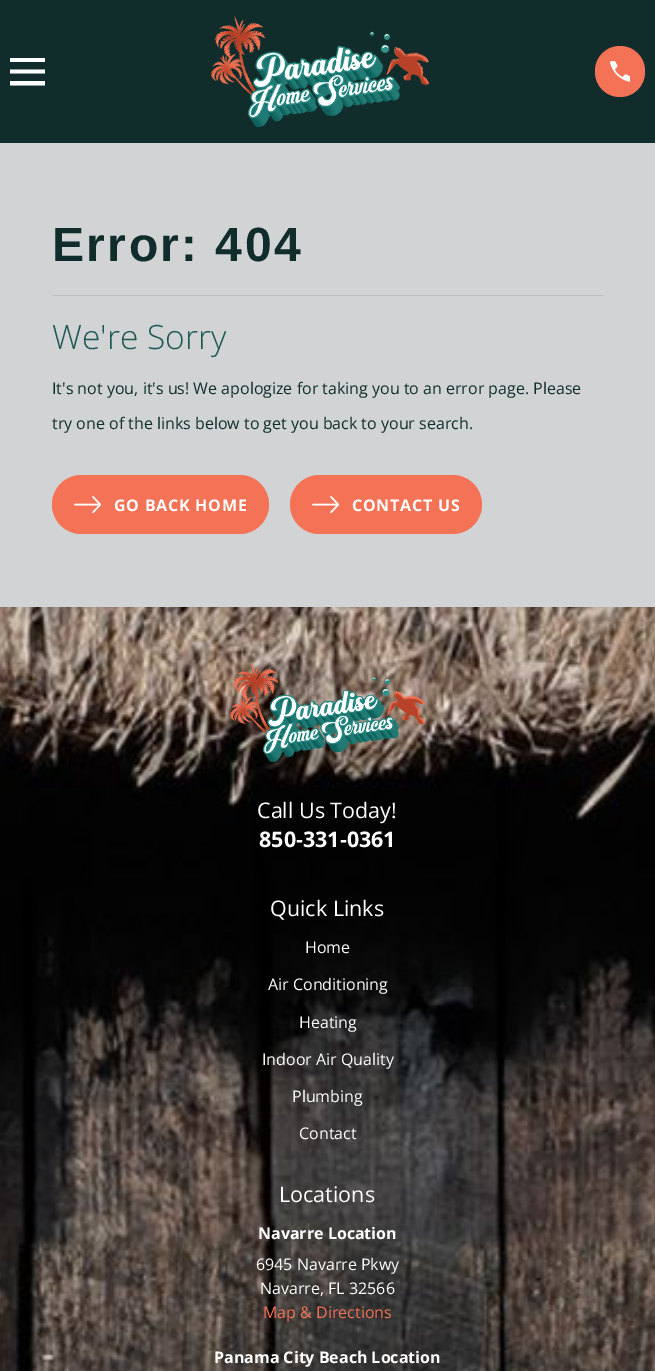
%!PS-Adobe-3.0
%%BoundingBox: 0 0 655 1371
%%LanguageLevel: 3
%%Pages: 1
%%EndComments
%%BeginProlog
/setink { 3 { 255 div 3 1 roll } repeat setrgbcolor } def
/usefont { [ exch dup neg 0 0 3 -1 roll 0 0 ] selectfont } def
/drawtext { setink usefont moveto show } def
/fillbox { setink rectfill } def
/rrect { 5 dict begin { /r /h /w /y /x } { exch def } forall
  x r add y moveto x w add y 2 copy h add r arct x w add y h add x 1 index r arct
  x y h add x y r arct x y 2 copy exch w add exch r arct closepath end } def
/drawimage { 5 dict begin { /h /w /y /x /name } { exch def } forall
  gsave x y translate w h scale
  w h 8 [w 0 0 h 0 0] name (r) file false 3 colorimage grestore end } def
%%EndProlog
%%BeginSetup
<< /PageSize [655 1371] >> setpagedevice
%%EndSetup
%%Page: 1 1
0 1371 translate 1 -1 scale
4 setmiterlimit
0 0 655 1371 209 211 212 fillbox
0 0 655 143 16 45 43 fillbox
255 255 255 setink
10 58 moveto 10 62 lineto 45 62 lineto 45 58 lineto closepath 10 69.5 moveto 10 73.5 lineto 45 73.5 lineto 45 69.5 lineto closepath 10 81 moveto 10 85.5 lineto 45 85.5 lineto 45 81 lineto closepath fill
(assets/img1.rgb) 211 16 218 111 drawimage
244 114 85 setink
595 46 50 51 25 rrect fill
(assets/img2.rgb) 610 61 20 21 drawimage
/LiberationSans-Bold 48 usefont
16 45 43 setink
52 261 moveto 2.4 0 (Error: 404) ashow
52 295 551 1 188 190 191 fillbox
(We're Sorry) 52 349 /OpenSans-Light 33.5 32 90 86 drawtext
(It's not you, it's us! We apologize for taking you to an error page. Please) 52 394 /OpenSans-Regular 16 16 45 43 drawtext
(try one of the links below to get you back to your search.) 52 429 /OpenSans-Regular 16 16 45 43 drawtext
244 114 85 setink
52 475 217 59 29.5 rrect fill
(assets/img3.rgb) 74 496 27 18 drawimage
/OpenSans-Bold 16 usefont
255 255 255 setink
114 511 moveto 0.75 0 (GO BACK HOME) ashow
244 114 85 setink
290 475 192 59 29.5 rrect fill
(assets/img3.rgb) 312 496 27 18 drawimage
255 255 255 setink
352 511 moveto 0.75 0 (CONTACT US) ashow
(assets/img4.rgb) 0 607 655 764 drawimage
(assets/img5.rgb) 230 663 195 99 drawimage
(Call Us Today!) 257 818 /OpenSans-Regular 21.5 255 255 255 drawtext
(850-331-0361) 259 847 /OpenSans-Bold 21.5 255 255 255 drawtext
(Quick Links) 270 916 /OpenSans-Regular 21.5 255 255 255 drawtext
(Home) 305 953 /OpenSans-Regular 16 255 255 255 drawtext
(Air Conditioning) 268 990 /OpenSans-Regular 16 255 255 255 drawtext
(Heating) 299 1028 /OpenSans-Regular 16 255 255 255 drawtext
(Indoor Air Quality) 262 1065 /OpenSans-Regular 16 255 255 255 drawtext
(Plumbing) 292 1102 /OpenSans-Regular 16 255 255 255 drawtext
(Contact) 299 1139 /OpenSans-Regular 16 255 255 255 drawtext
(Locations) 279 1202 /OpenSans-Regular 21.5 255 255 255 drawtext
(Navarre Location) 258 1239 /OpenSans-Bold 16 255 255 255 drawtext
(6945 Navarre Pkwy) 256 1270 /OpenSans-Regular 16 255 255 255 drawtext
(Navarre, FL 32566) 260 1294 /OpenSans-Regular 16 255 255 255 drawtext
(Map & Directions) 263 1318 /OpenSans-Regular 16 244 114 85 drawtext
(Panama City Beach Location) 214 1363 /OpenSans-Bold 16 255 255 255 drawtext
showpage
%%EOF
